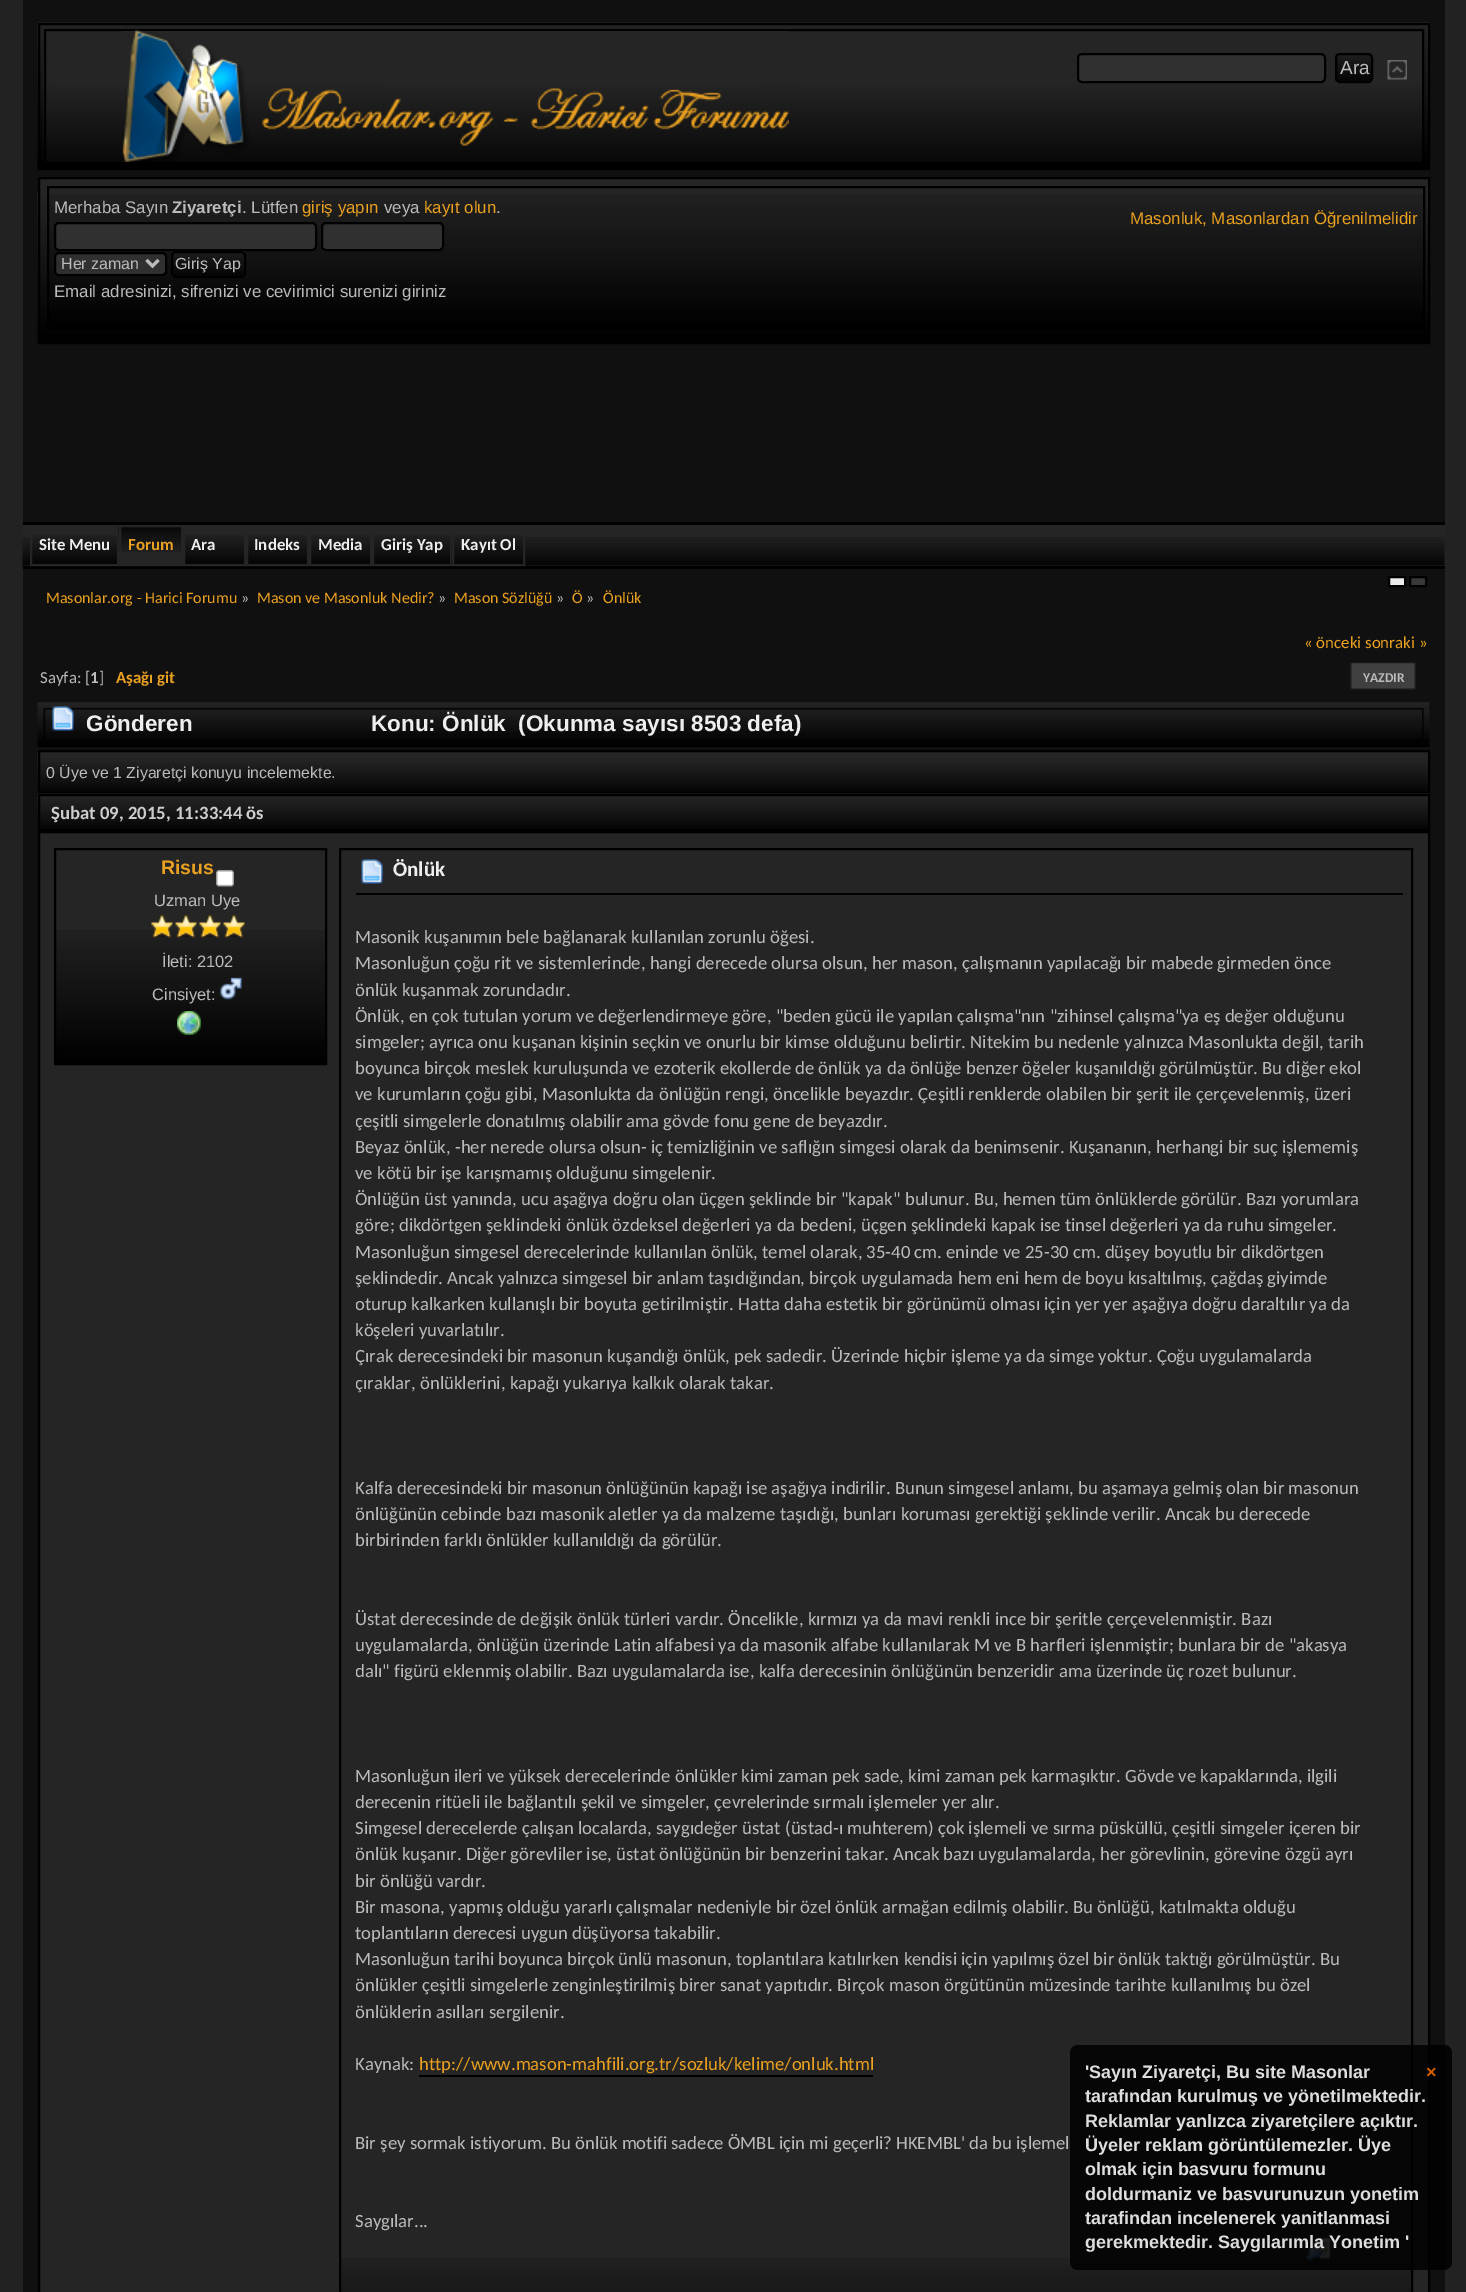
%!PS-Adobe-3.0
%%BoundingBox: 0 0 1466 2292
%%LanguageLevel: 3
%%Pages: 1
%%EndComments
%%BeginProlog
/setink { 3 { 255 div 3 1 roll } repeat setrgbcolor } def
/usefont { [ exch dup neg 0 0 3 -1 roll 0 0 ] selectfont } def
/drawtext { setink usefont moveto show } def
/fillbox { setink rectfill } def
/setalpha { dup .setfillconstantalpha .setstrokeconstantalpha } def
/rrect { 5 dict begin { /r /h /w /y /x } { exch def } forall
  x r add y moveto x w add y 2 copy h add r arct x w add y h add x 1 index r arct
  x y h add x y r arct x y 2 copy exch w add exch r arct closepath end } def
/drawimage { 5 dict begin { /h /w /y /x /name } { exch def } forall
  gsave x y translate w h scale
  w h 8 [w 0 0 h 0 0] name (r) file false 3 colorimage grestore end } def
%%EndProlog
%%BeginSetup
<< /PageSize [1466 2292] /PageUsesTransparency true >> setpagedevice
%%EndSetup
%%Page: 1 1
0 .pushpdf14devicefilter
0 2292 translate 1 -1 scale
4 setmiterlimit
0 0 1466 2292 34 34 34 fillbox
23 0 1422 2292 16 16 16 fillbox
(assets/img1.rgb) 37 22 1393 146 drawimage
0 0 1 setink
2 setlinewidth
39 24 1390 145 rectstroke
46 31 1376 29 37 37 37 fillbox
(assets/img2.rgb) 43 60 1379 102 drawimage
0 0 1 setink
45 30 1378 133 rectstroke
(assets/img3.rgb) 122 30 667 132 drawimage
48 48 48 setink
1078 54 247 28 4 rrect gsave fill grestore
0 0 1 setink
stroke
(assets/img4.rgb) 1335 53 38 28 drawimage
1336 54 36 28 4 rrect stroke
(Ara) 1340 74 /LiberationSans-Regular 19 187 187 187 drawtext
(assets/img5.rgb) 1387 60 20 20 drawimage
40 179 1388 13 37 37 37 fillbox
(assets/img6.rgb) 37 192 1391 150 drawimage
0 0 1 setink
39 178 1390 165 rectstroke
(assets/img7.rgb) 49 195 1374 133 drawimage
48 187 1376 142 rectstroke
(Merhaba Sayın) 54 213 /LiberationSans-Regular 16.85 187 187 187 drawtext
(Ziyaretçi) 172 213 /LiberationSans-Bold 16.85 187 187 187 drawtext
(. Lütfen) 242 213 /LiberationSans-Regular 16.85 187 187 187 drawtext
(giriş yapın) 302 213 /LiberationSans-Regular 16.85 234 160 32 drawtext
(veya) 384 213 /LiberationSans-Regular 16.85 187 187 187 drawtext
(kayıt olun) 424 213 /LiberationSans-Regular 16.85 234 160 32 drawtext
(.) 496 213 /LiberationSans-Regular 16.85 187 187 187 drawtext
48 48 48 setink
55 223 261 27 4 rrect gsave fill grestore
0 0 1 setink
stroke
48 48 48 setink
322 223 121 27 4 rrect gsave fill grestore
0 0 1 setink
stroke
48 48 48 setink
55 253 111 22 4 rrect gsave fill grestore
0 0 1 setink
stroke
187 187 187 setink
3 setlinewidth
146.5 260 moveto 152.5 266 lineto 158.5 260 lineto stroke
(Her zaman) 61 269 /LiberationSans-Regular 16 187 187 187 drawtext
(assets/img8.rgb) 171 250 75 27 drawimage
0 0 1 setink
2 setlinewidth
172 252 73 25 4 rrect stroke
(Giriş Yap) 175 269 /LiberationSans-Regular 16 187 187 187 drawtext
(Email adresinizi, sifrenizi ve cevirimici surenizi giriniz) 54 297 /LiberationSans-Regular 16.85 187 187 187 drawtext
(Masonluk, Masonlardan Öğrenilmelidir) 1130 224 /LiberationSans-Regular 16.85 234 160 32 drawtext
23 525 1422 41 37 37 37 fillbox
(assets/img9.rgb) 22 537 1423 29 drawimage
23 522 1422 3 0 0 1 fillbox
23 566 1422 3 0 0 1 fillbox
(assets/img10.rgb) 32 535 85 29 drawimage
37 37 37 setink
31 526 87 39 rectstroke
(Site Menu) 39 550 /Carlito-Bold 16.85 238 238 238 drawtext
121 552 60 12 37 37 37 fillbox
(assets/img11.rgb) 118 526 63 26 drawimage
120 526 62 39 rectstroke
(Forum) 128 550 /Carlito-Bold 16.85 234 160 32 drawtext
(assets/img12.rgb) 185 535 59 29 drawimage
37 37 37 setink
184 526 61 39 rectstroke
(Ara) 191 550 /Carlito-Bold 16.85 238 238 238 drawtext
(assets/img12.rgb) 248 535 59 29 drawimage
37 37 37 setink
247 526 61 39 rectstroke
(Indeks) 254 550 /Carlito-Bold 16.85 238 238 238 drawtext
(assets/img12.rgb) 311 535 59 29 drawimage
37 37 37 setink
310 526 61 39 rectstroke
(Media) 318 550 /Carlito-Bold 16.85 238 238 238 drawtext
(assets/img13.rgb) 374 535 76 29 drawimage
37 37 37 setink
373 526 78 39 rectstroke
(Giriş Yap) 381 550 /Carlito-Bold 16.85 238 238 238 drawtext
(assets/img14.rgb) 451 535 72 29 drawimage
37 37 37 setink
453 526 71 39 rectstroke
(Kayıt Ol) 461 550 /Carlito-Bold 16.85 238 238 238 drawtext
236 236 236 setink
1389 577 moveto 1405 577 lineto 1405 586 lineto 1389 586 lineto closepath gsave fill grestore
0 0 0 setink
stroke
57 57 57 setink
1410 577 moveto 1426 577 lineto 1426 586 lineto 1410 586 lineto closepath gsave fill grestore
0 0 0 setink
stroke
(Masonlar.org - Harici Forumu) 46 603 /Carlito-Regular 16 234 160 32 drawtext
(») 241 603 /Carlito-Regular 16 187 187 187 drawtext
(Mason ve Masonluk Nedir?) 257 603 /Carlito-Regular 16 234 160 32 drawtext
(») 438 603 /Carlito-Regular 16 187 187 187 drawtext
(Mason Sözlüğü) 454 603 /Carlito-Regular 16 234 160 32 drawtext
(») 556 603 /Carlito-Regular 16 187 187 187 drawtext
(Ö) 572 603 /Carlito-Regular 16 234 160 32 drawtext
(») 586 603 /Carlito-Regular 16 187 187 187 drawtext
(Önlük) 603 603 /Carlito-Regular 16 234 160 32 drawtext
(« önceki sonraki ») 1304 648 /Carlito-Regular 16.85 234 160 32 drawtext
(Sayfa: [) 40 683 /Carlito-Regular 16.85 187 187 187 drawtext
(1) 90 683 /Carlito-Bold 16.85 187 187 187 drawtext
(]) 99 683 /Carlito-Regular 16.85 187 187 187 drawtext
(Aşağı git) 116 683 /Carlito-Bold 16.85 234 160 32 drawtext
(assets/img15.rgb) 1350 662 66 28 drawimage
(assets/img16.rgb) 1414 662 2 27 drawimage
(YAZDIR) 1363 682 /Carlito-Bold 13.5 187 187 187 drawtext
(assets/img17.rgb) 37 702 1393 45 drawimage
(assets/img18.rgb) 1422 708 8 30 drawimage
(assets/img19.rgb) 52 706 22 25 drawimage
(Gönderen) 86 731 /LiberationSans-Bold 22.5 238 238 238 drawtext
(Konu: Önlük  \(Okunma sayısı 8503 defa\)) 371 731 /LiberationSans-Bold 22.5 238 238 238 drawtext
40 752 1388 1 37 37 37 fillbox
(assets/img20.rgb) 37 753 1391 39 drawimage
0 0 1 setink
39 751 1390 42 rectstroke
(0 Üye ve 1 Ziyaretçi konuyu incelemekte.) 46 778 /LiberationSans-Regular 15.9 187 187 187 drawtext
(assets/img21.rgb) 37 793 1393 37 drawimage
0 0 1 setink
39 795 1390 35 rectstroke
(Şubat 09, 2015, 11:33:44 ös) 51 819 /Carlito-Bold 18.72 204 204 204 drawtext
37 37 37 setink
39 832 moveto 1429 832 lineto 1429 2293 lineto 39 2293 lineto closepath gsave fill grestore
0 0 1 setink
stroke
(assets/img22.rgb) 56 930 269 133 drawimage
55 849 271 215 rectstroke
(Risus) 161 874 /LiberationSans-Bold 19.5 234 160 32 drawtext
(assets/img23.rgb) 216 870 18 17 drawimage
(Uzman Uye) 154 906 /LiberationSans-Regular 16.5 187 187 187 drawtext
(assets/img24.rgb) 151 915 22 23 drawimage
(assets/img24.rgb) 175 915 22 23 drawimage
(assets/img24.rgb) 199 915 22 23 drawimage
(assets/img24.rgb) 223 915 22 23 drawimage
(İleti: 2102) 162 967 /LiberationSans-Regular 16.5 187 187 187 drawtext
(Cinsiyet:) 152 1000 /LiberationSans-Regular 16.5 187 187 187 drawtext
(assets/img25.rgb) 220 977 22 23 drawimage
(assets/img26.rgb) 177 1011 24 24 drawimage
(assets/img27.rgb) 341 2258 1070 34 drawimage
0 0 1 setink
340 849 1072 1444 rectstroke
356 893 1047 2 0 0 1 fillbox
(assets/img28.rgb) 361 859 22 25 drawimage
(Önlük) 393 876 /Carlito-Bold 21 238 238 238 drawtext
(Masonik kuşanımın bele bağlanarak kullanılan zorunlu öğesi.) 355 943 /Carlito-Regular 18.72 187 187 187 drawtext
(Masonluğun çoğu rit ve sistemlerinde, hangi derecede olursa olsun, her mason, çalışmanın yapılacağı bir mabede girmeden önce) 355 969 /Carlito-Regular 18.72 187 187 187 drawtext
gsave
356 903 1047 1334 rectclip
(önlük kuşanmak zorundadır.) 355 996 /Carlito-Regular 18.72 187 187 187 drawtext
(Önlük, en çok tutulan yorum ve değerlendirmeye göre, "beden gücü ile yapılan çalışma"nın "zihinsel çalışma"ya eş değer olduğunu) 355 1022 /Carlito-Regular 18.72 187 187 187 drawtext
grestore
(simgeler; ayrıca onu kuşanan kişinin seçkin ve onurlu bir kimse olduğunu belirtir. Nitekim bu nedenle yalnızca Masonlukta değil, tarih) 355 1048 /Carlito-Regular 18.72 187 187 187 drawtext
(boyunca birçok meslek kuruluşunda ve ezoterik ekollerde de önlük ya da önlüğe benzer öğeler kuşanıldığı görülmüştür. Bu diğer ekol) 355 1074 /Carlito-Regular 18.72 187 187 187 drawtext
(ve kurumların çoğu gibi, Masonlukta da önlüğün rengi, öncelikle beyazdır. Çeşitli renklerde olabilen bir şerit ile çerçevelenmiş, üzeri) 355 1100 /Carlito-Regular 18.72 187 187 187 drawtext
gsave
356 903 1047 1334 rectclip
(çeşitli simgelerle donatılmış olabilir ama gövde fonu gene de beyazdır.) 355 1127 /Carlito-Regular 18.72 187 187 187 drawtext
grestore
(Beyaz önlük, -her nerede olursa olsun- iç temizliğinin ve saflığın simgesi olarak da benimsenir. Kuşananın, herhangi bir suç işlememiş) 355 1153 /Carlito-Regular 18.72 187 187 187 drawtext
(ve kötü bir işe karışmamış olduğunu simgelenir.) 355 1179 /Carlito-Regular 18.72 187 187 187 drawtext
gsave
356 903 1047 1334 rectclip
(Önlüğün üst yanında, ucu aşağıya doğru olan üçgen şeklinde bir "kapak" bulunur. Bu, hemen tüm önlüklerde görülür. Bazı yorumlara) 355 1205 /Carlito-Regular 18.72 187 187 187 drawtext
grestore
(göre; dikdörtgen şeklindeki önlük özdeksel değerleri ya da bedeni, üçgen şeklindeki kapak ise tinsel değerleri ya da ruhu simgeler.) 355 1231 /Carlito-Regular 18.72 187 187 187 drawtext
(Masonluğun simgesel derecelerinde kullanılan önlük, temel olarak, 35-40 cm. eninde ve 25-30 cm. düşey boyutlu bir dikdörtgen) 355 1258 /Carlito-Regular 18.72 187 187 187 drawtext
(şeklindedir. Ancak yalnızca simgesel bir anlam taşıdığından, birçok uygulamada hem eni hem de boyu kısaltılmış, çağdaş giyimde) 355 1284 /Carlito-Regular 18.72 187 187 187 drawtext
gsave
356 903 1047 1334 rectclip
(oturup kalkarken kullanışlı bir boyuta getirilmiştir. Hatta daha estetik bir görünümü olması için yer yer aşağıya doğru daraltılır ya da) 355 1310 /Carlito-Regular 18.72 187 187 187 drawtext
grestore
(köşeleri yuvarlatılır.) 355 1336 /Carlito-Regular 18.72 187 187 187 drawtext
gsave
356 903 1047 1334 rectclip
(Çırak derecesindeki bir masonun kuşandığı önlük, pek sadedir. Üzerinde hiçbir işleme ya da simge yoktur. Çoğu uygulamalarda) 355 1362 /Carlito-Regular 18.72 187 187 187 drawtext
(çıraklar, önlüklerini, kapağı yukarıya kalkık olarak takar.) 355 1389 /Carlito-Regular 18.72 187 187 187 drawtext
grestore
(Kalfa derecesindeki bir masonun önlüğünün kapağı ise aşağıya indirilir. Bunun simgesel anlamı, bu aşamaya gelmiş olan bir masonun) 355 1494 /Carlito-Regular 18.72 187 187 187 drawtext
gsave
356 903 1047 1334 rectclip
(önlüğünün cebinde bazı masonik aletler ya da malzeme taşıdığı, bunları koruması gerektiği şeklinde verilir. Ancak bu derecede) 355 1520 /Carlito-Regular 18.72 187 187 187 drawtext
grestore
(birbirinden farklı önlükler kullanıldığı da görülür.) 355 1546 /Carlito-Regular 18.72 187 187 187 drawtext
(Üstat derecesinde de değişik önlük türleri vardır. Öncelikle, kırmızı ya da mavi renkli ince bir şeritle çerçevelenmiştir. Bazı) 355 1625 /Carlito-Regular 18.72 187 187 187 drawtext
(uygulamalarda, önlüğün üzerinde Latin alfabesi ya da masonik alfabe kullanılarak M ve B harfleri işlenmiştir; bunlara bir de "akasya) 355 1651 /Carlito-Regular 18.72 187 187 187 drawtext
gsave
356 903 1047 1334 rectclip
(dalı" figürü eklenmiş olabilir. Bazı uygulamalarda ise, kalfa derecesinin önlüğünün benzeridir ama üzerinde üç rozet bulunur.) 355 1677 /Carlito-Regular 18.72 187 187 187 drawtext
grestore
(Masonluğun ileri ve yüksek derecelerinde önlükler kimi zaman pek sade, kimi zaman pek karmaşıktır. Gövde ve kapaklarında, ilgili) 355 1782 /Carlito-Regular 18.72 187 187 187 drawtext
gsave
356 903 1047 1334 rectclip
(derecenin ritüeli ile bağlantılı şekil ve simgeler, çevrelerinde sırmalı işlemeler yer alır.) 355 1808 /Carlito-Regular 18.72 187 187 187 drawtext
grestore
(Simgesel derecelerde çalışan localarda, saygıdeğer üstat \(üstad-ı muhterem\) çok işlemeli ve sırma püsküllü, çeşitli simgeler içeren bir) 355 1834 /Carlito-Regular 18.72 187 187 187 drawtext
gsave
356 903 1047 1334 rectclip
(önlük kuşanır. Diğer görevliler ise, üstat önlüğünün bir benzerini takar. Ancak bazı uygulamalarda, her görevlinin, görevine özgü ayrı) 355 1860 /Carlito-Regular 18.72 187 187 187 drawtext
grestore
(bir önlüğü vardır.) 355 1887 /Carlito-Regular 18.72 187 187 187 drawtext
(Bir masona, yapmış olduğu yararlı çalışmalar nedeniyle bir özel önlük armağan edilmiş olabilir. Bu önlüğü, katılmakta olduğu) 355 1913 /Carlito-Regular 18.72 187 187 187 drawtext
(toplantıların derecesi uygun düşüyorsa takabilir.) 355 1939 /Carlito-Regular 18.72 187 187 187 drawtext
(Masonluğun tarihi boyunca birçok ünlü masonun, toplantılara katılırken kendisi için yapılmış özel bir önlük taktığı görülmüştür. Bu) 355 1965 /Carlito-Regular 18.72 187 187 187 drawtext
gsave
356 903 1047 1334 rectclip
(önlükler çeşitli simgelerle zenginleştirilmiş birer sanat yapıtıdır. Birçok mason örgütünün müzesinde tarihte kullanılmış bu özel) 355 1991 /Carlito-Regular 18.72 187 187 187 drawtext
(önlüklerin asılları sergilenir.) 355 2018 /Carlito-Regular 18.72 187 187 187 drawtext
grestore
(Kaynak:) 355 2070 /Carlito-Regular 18.72 187 187 187 drawtext
(http://www.mason-mahfili.org.tr/sozluk/kelime/onluk.html) 419 2070 /Carlito-Regular 18.72 234 160 32 drawtext
419 2075 454 2 0 0 1 fillbox
(Bir şey sormak istiyorum. Bu önlük motifi sadece ÖMBL için mi geçerli? HKEMBL' da bu işlemel) 355 2149 /Carlito-Regular 18.72 187 187 187 drawtext
(Saygılar...) 355 2227 /Carlito-Regular 18.72 187 187 187 drawtext
(assets/img29.rgb) 1306 2237 25 24 drawimage
0.85 setalpha
0 0 0 setink
1070 2045 382 225 8 rrect fill
1 setalpha
('Sayın Ziyaretçi, Bu site Masonlar) 1085 2078 /LiberationSans-Bold 18 222 222 222 drawtext
(tarafından kurulmuş ve yönetilmektedir.) 1085 2102 /LiberationSans-Bold 18 222 222 222 drawtext
(Reklamlar yanlızca ziyaretçilere açıktır.) 1085 2127 /LiberationSans-Bold 18 222 222 222 drawtext
(Üyeler reklam görüntülemezler. Üye) 1085 2151 /LiberationSans-Bold 18 222 222 222 drawtext
(olmak için basvuru formunu) 1085 2175 /LiberationSans-Bold 18 222 222 222 drawtext
(doldurmaniz ve basvurunuzun yonetim) 1085 2200 /LiberationSans-Bold 18 222 222 222 drawtext
(tarafindan incelenerek yanitlanmasi) 1085 2224 /LiberationSans-Bold 18 222 222 222 drawtext
(gerekmektedir.) 1085 2248 /LiberationSans-Bold 18 222 222 222 drawtext
(Saygılarımla Yonetim ') 1218 2248 /LiberationSans-Bold 18 222 222 222 drawtext
(×) 1426 2078 /LiberationSans-Bold 18 217 97 0 drawtext
.poppdf14devicefilter showpage
%%EOF
